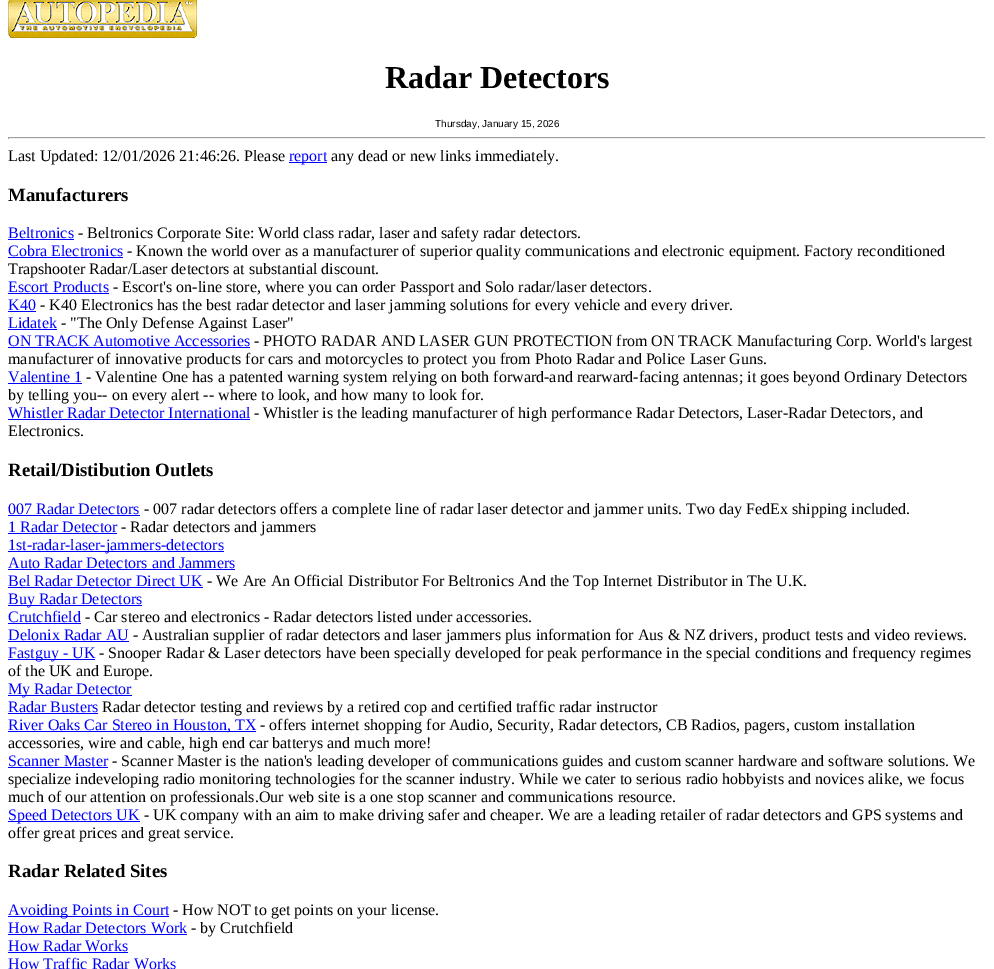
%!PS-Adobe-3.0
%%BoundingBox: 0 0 994 969
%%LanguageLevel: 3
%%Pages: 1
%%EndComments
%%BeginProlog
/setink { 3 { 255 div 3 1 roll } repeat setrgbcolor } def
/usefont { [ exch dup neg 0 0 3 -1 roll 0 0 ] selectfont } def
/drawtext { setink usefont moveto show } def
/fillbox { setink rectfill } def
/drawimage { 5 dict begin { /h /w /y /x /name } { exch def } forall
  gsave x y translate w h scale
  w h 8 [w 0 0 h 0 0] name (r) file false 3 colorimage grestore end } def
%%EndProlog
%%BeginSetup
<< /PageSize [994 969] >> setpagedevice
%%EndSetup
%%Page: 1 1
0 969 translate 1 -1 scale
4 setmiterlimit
0 0 994 969 255 255 255 fillbox
(assets/img1.rgb) 8 0 189 38 drawimage
(Radar Detectors) 385 88 /LiberationSerif-Bold 32 0 0 0 drawtext
(Thursday, January 15, 2026) 435 127 /LiberationSans-Regular 10 0 0 0 drawtext
8 137 978 1 159 159 159 fillbox
985 137 1 2 238 238 238 fillbox
8 138 978 1 238 238 238 fillbox
8 137 1 2 159 159 159 fillbox
(Last Updated: 12/01/2026 21:46:26. Please) 8 161 /LiberationSerif-Regular 16 0 0 0 drawtext
289 162 38 1 0 0 255 fillbox
(report) 289 161 /LiberationSerif-Regular 16 0 0 255 drawtext
(any dead or new links immediately.) 331 161 /LiberationSerif-Regular 16 0 0 0 drawtext
(Manufacturers) 8 201 /LiberationSerif-Bold 18.75 0 0 0 drawtext
(Beltronics) 8 238 /LiberationSerif-Regular 16 0 0 255 drawtext
8 239 66 1 0 0 255 fillbox
(- Beltronics Corporate Site: World class radar, laser and safety radar detectors.) 78 238 /LiberationSerif-Regular 16 0 0 0 drawtext
(Cobra Electronics) 8 256 /LiberationSerif-Regular 16 0 0 255 drawtext
8 257 115 1 0 0 255 fillbox
(- Known the world over as a manufacturer of superior quality communications and electronic equipment. Factory reconditioned) 127 256 /LiberationSerif-Regular 16 0 0 0 drawtext
(Trapshooter Radar/Laser detectors at substantial discount.) 8 274 /LiberationSerif-Regular 16 0 0 0 drawtext
(Escort Products) 8 292 /LiberationSerif-Regular 16 0 0 255 drawtext
8 293 101 1 0 0 255 fillbox
(- Escort's on-line store, where you can order Passport and Solo radar/laser detectors.) 113 292 /LiberationSerif-Regular 16 0 0 0 drawtext
(K40) 8 310 /LiberationSerif-Regular 16 0 0 255 drawtext
8 311 28 1 0 0 255 fillbox
(- K40 Electronics has the best radar detector and laser jamming solutions for every vehicle and every driver.) 40 310 /LiberationSerif-Regular 16 0 0 0 drawtext
(Lidatek) 8 328 /LiberationSerif-Regular 16 0 0 255 drawtext
8 329 49 1 0 0 255 fillbox
(- "The Only Defense Against Laser") 61 328 /LiberationSerif-Regular 16 0 0 0 drawtext
(ON TRACK Automotive Accessories) 8 346 /LiberationSerif-Regular 16 0 0 255 drawtext
8 347 242 1 0 0 255 fillbox
(- PHOTO RADAR AND LASER GUN PROTECTION from ON TRACK Manufacturing Corp. World's largest) 254 346 /LiberationSerif-Regular 16 0 0 0 drawtext
(manufacturer of innovative products for cars and motorcycles to protect you from Photo Radar and Police Laser Guns.) 8 364 /LiberationSerif-Regular 16 0 0 0 drawtext
(Valentine 1) 8 382 /LiberationSerif-Regular 16 0 0 255 drawtext
8 383 74 1 0 0 255 fillbox
(- Valentine One has a patented warning system relying on both forward-and rearward-facing antennas; it goes beyond Ordinary Detectors) 86 382 /LiberationSerif-Regular 16 0 0 0 drawtext
(by telling you-- on every alert -- where to look, and how many to look for.) 8 400 /LiberationSerif-Regular 16 0 0 0 drawtext
(Whistler Radar Detector International) 8 418 /LiberationSerif-Regular 16 0 0 255 drawtext
8 419 242 1 0 0 255 fillbox
(- Whistler is the leading manufacturer of high performance Radar Detectors, Laser-Radar Detectors, and) 254 418 /LiberationSerif-Regular 16 0 0 0 drawtext
(Electronics.) 8 436 /LiberationSerif-Regular 16 0 0 0 drawtext
(Retail/Distibution Outlets) 8 476 /LiberationSerif-Bold 18.75 0 0 0 drawtext
(007 Radar Detectors) 8 514 /LiberationSerif-Regular 16 0 0 255 drawtext
8 515 132 1 0 0 255 fillbox
(- 007 radar detectors offers a complete line of radar laser detector and jammer units. Two day FedEx shipping included.) 144 514 /LiberationSerif-Regular 16 0 0 0 drawtext
(1 Radar Detector) 8 532 /LiberationSerif-Regular 16 0 0 255 drawtext
8 533 109 1 0 0 255 fillbox
(- Radar detectors and jammers) 121 532 /LiberationSerif-Regular 16 0 0 0 drawtext
8 551 216 1 0 0 255 fillbox
(1st-radar-laser-jammers-detectors) 8 550 /LiberationSerif-Regular 16 0 0 255 drawtext
(Auto Radar Detectors and Jammers) 8 568 /LiberationSerif-Regular 16 0 0 255 drawtext
8 569 227 1 0 0 255 fillbox
(Bel Radar Detector Direct UK) 8 586 /LiberationSerif-Regular 16 0 0 255 drawtext
8 587 195 1 0 0 255 fillbox
(- We Are An Official Distributor For Beltronics And the Top Internet Distributor in The U.K.) 207 586 /LiberationSerif-Regular 16 0 0 0 drawtext
8 605 134 1 0 0 255 fillbox
(Buy Radar Detectors) 8 604 /LiberationSerif-Regular 16 0 0 255 drawtext
(Crutchfield) 8 622 /LiberationSerif-Regular 16 0 0 255 drawtext
8 623 73 1 0 0 255 fillbox
(- Car stereo and electronics - Radar detectors listed under accessories.) 85 622 /LiberationSerif-Regular 16 0 0 0 drawtext
(Delonix Radar AU) 8 640 /LiberationSerif-Regular 16 0 0 255 drawtext
8 641 121 1 0 0 255 fillbox
(- Australian supplier of radar detectors and laser jammers plus information for Aus & NZ drivers, product tests and video reviews.) 133 640 /LiberationSerif-Regular 16 0 0 0 drawtext
8 659 87 1 0 0 255 fillbox
(Fastguy - UK) 8 658 /LiberationSerif-Regular 16 0 0 255 drawtext
(- Snooper Radar & Laser detectors have been specially developed for peak performance in the special conditions and frequency regimes) 99 658 /LiberationSerif-Regular 16 0 0 0 drawtext
(of the UK and Europe.) 8 676 /LiberationSerif-Regular 16 0 0 0 drawtext
8 695 124 1 0 0 255 fillbox
(My Radar Detector) 8 694 /LiberationSerif-Regular 16 0 0 255 drawtext
(Radar Busters) 8 712 /LiberationSerif-Regular 16 0 0 255 drawtext
8 713 90 1 0 0 255 fillbox
(Radar detector testing and reviews by a retired cop and certified traffic radar instructor) 102 712 /LiberationSerif-Regular 16 0 0 0 drawtext
8 731 248 1 0 0 255 fillbox
(River Oaks Car Stereo in Houston, TX) 8 730 /LiberationSerif-Regular 16 0 0 255 drawtext
(- offers internet shopping for Audio, Security, Radar detectors, CB Radios, pagers, custom installation) 260 730 /LiberationSerif-Regular 16 0 0 0 drawtext
(accessories, wire and cable, high end car batterys and much more!) 8 748 /LiberationSerif-Regular 16 0 0 0 drawtext
(Scanner Master) 8 766 /LiberationSerif-Regular 16 0 0 255 drawtext
8 767 100 1 0 0 255 fillbox
(- Scanner Master is the nation's leading developer of communications guides and custom scanner hardware and software solutions. We) 112 766 /LiberationSerif-Regular 16 0 0 0 drawtext
(specialize indeveloping radio monitoring technologies for the scanner industry. While we cater to serious radio hobbyists and novices alike, we focus) 8 784 /LiberationSerif-Regular 16 0 0 0 drawtext
(much of our attention on professionals.Our web site is a one stop scanner and communications resource.) 8 802 /LiberationSerif-Regular 16 0 0 0 drawtext
8 821 132 1 0 0 255 fillbox
(Speed Detectors UK) 8 820 /LiberationSerif-Regular 16 0 0 255 drawtext
(- UK company with an aim to make driving safer and cheaper. We are a leading retailer of radar detectors and GPS systems and) 144 820 /LiberationSerif-Regular 16 0 0 0 drawtext
(offer great prices and great service.) 8 838 /LiberationSerif-Regular 16 0 0 0 drawtext
(Radar Related Sites) 8 877 /LiberationSerif-Bold 18.75 0 0 0 drawtext
8 916 161 1 0 0 255 fillbox
(Avoiding Points in Court) 8 915 /LiberationSerif-Regular 16 0 0 255 drawtext
(- How NOT to get points on your license.) 173 915 /LiberationSerif-Regular 16 0 0 0 drawtext
(How Radar Detectors Work) 8 933 /LiberationSerif-Regular 16 0 0 255 drawtext
8 934 179 1 0 0 255 fillbox
(- by Crutchfield) 191 933 /LiberationSerif-Regular 16 0 0 0 drawtext
(How Radar Works) 8 951 /LiberationSerif-Regular 16 0 0 255 drawtext
8 952 120 1 0 0 255 fillbox
(How Traffic Radar Works) 8 969 /LiberationSerif-Regular 16 0 0 255 drawtext
showpage
%%EOF
